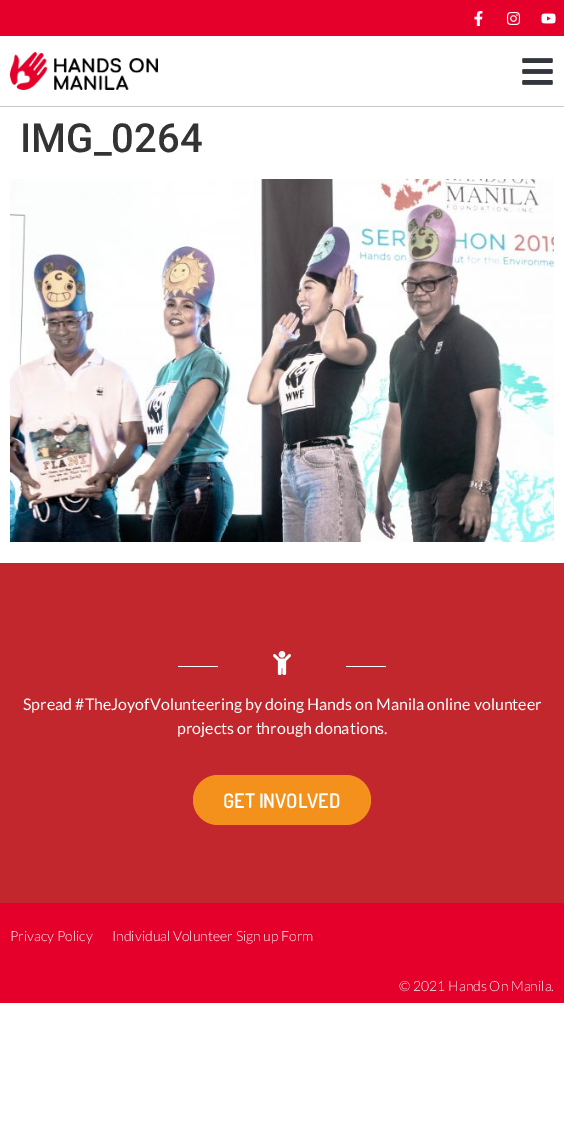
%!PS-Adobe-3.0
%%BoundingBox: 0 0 564 1132
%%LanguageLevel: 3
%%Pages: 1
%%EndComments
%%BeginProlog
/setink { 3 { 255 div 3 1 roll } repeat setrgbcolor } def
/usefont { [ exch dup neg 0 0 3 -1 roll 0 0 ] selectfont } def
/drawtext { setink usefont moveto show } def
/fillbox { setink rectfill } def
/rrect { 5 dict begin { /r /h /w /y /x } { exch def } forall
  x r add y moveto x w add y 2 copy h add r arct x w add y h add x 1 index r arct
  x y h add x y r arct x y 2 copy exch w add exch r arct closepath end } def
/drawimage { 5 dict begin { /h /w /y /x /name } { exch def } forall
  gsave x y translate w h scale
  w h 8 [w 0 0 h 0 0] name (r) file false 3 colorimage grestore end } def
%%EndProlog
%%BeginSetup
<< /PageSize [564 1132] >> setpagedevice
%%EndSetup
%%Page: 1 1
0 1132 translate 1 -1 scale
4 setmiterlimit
0 0 564 1132 255 255 255 fillbox
0 0 564 36 228 0 43 fillbox
(assets/img1.rgb) 474 11 9 15 drawimage
(assets/img2.rgb) 507 12 14 13 drawimage
(assets/img3.rgb) 541 13 15 11 drawimage
0 106 564 1 200 200 200 fillbox
(assets/img4.rgb) 10 52 148 38 drawimage
(assets/img5.rgb) 522 58 31 27 drawimage
(IMG_0264) 20 152 /Roboto-Medium 40 51 51 51 drawtext
(assets/img6.rgb) 10 179 544 363 drawimage
0 563 564 340 193 39 44 fillbox
178 666 40 1 255 255 255 fillbox
(assets/img7.rgb) 273 651 18 24 drawimage
346 666 40 1 255 255 255 fillbox
(Spread #TheJoyofVolunteering by doing Hands on Manila online volunteer) 23 710 /Lato-Regular 16 255 255 255 drawtext
(projects or through donations.) 177 734 /Lato-Regular 16 255 255 255 drawtext
244 145 28 setink
193 775 178 50 25 rrect fill
(GET INVOLVED) 223 808 /Dosis-SemiBold 20 255 255 255 drawtext
0 903 564 100 228 0 43 fillbox
(Privacy Policy) 10 941 /Lato-Light 14 255 255 255 drawtext
(Individual Volunteer Sign up Form) 112 941 /Lato-Light 14 255 255 255 drawtext
(© 2021 Hands On Manila.) 399 991 /Lato-Light 14 255 255 255 drawtext
showpage
%%EOF
